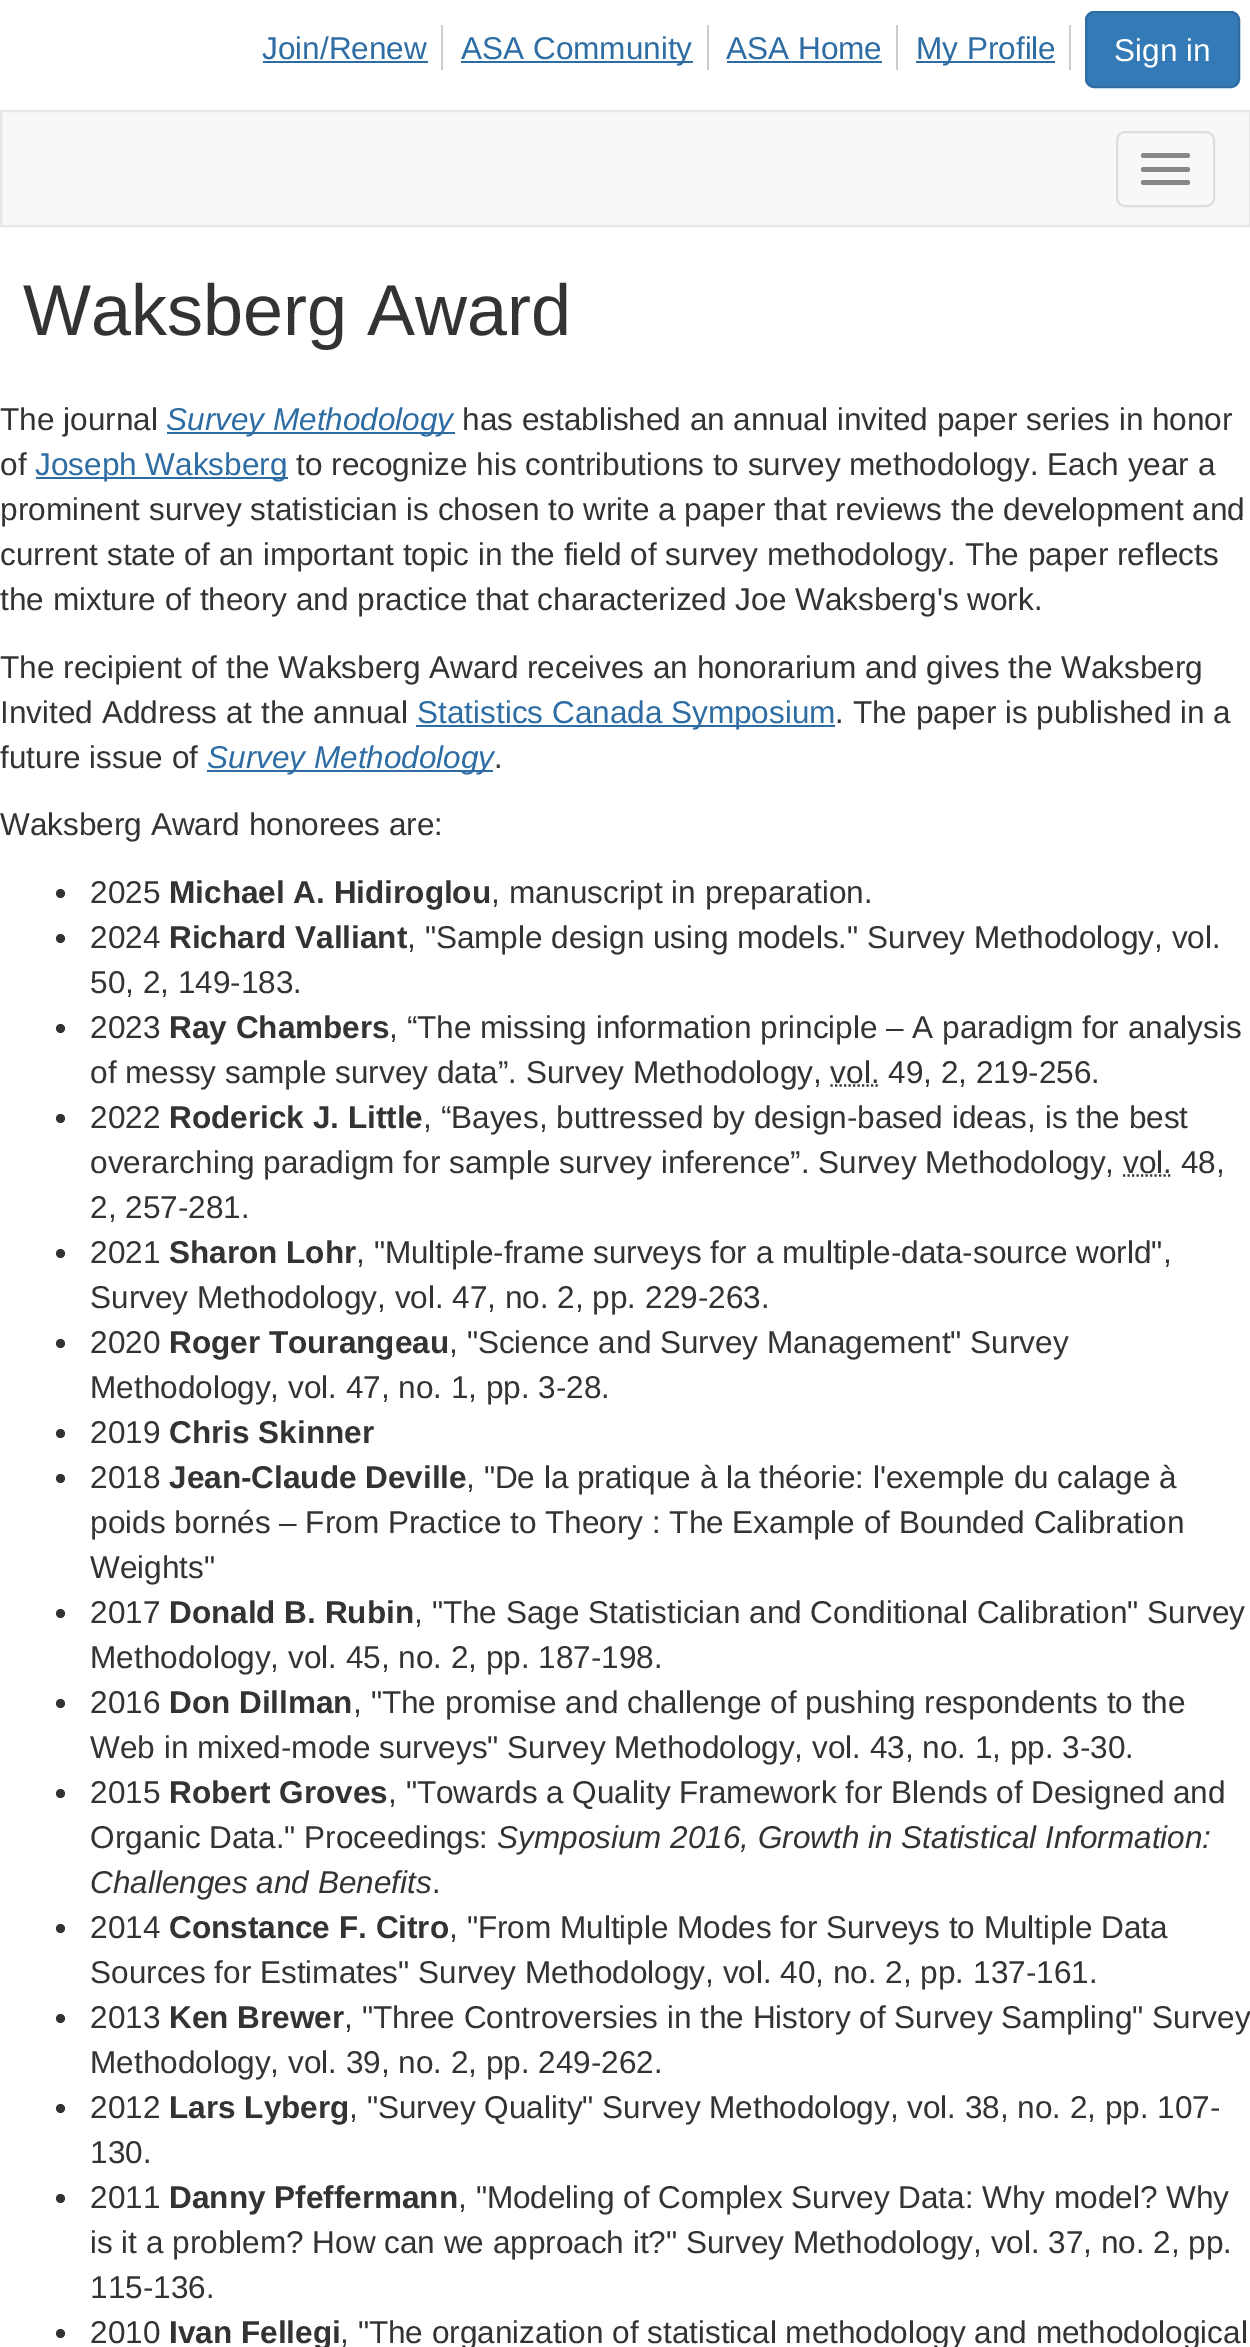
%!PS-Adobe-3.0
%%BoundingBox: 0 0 1250 2347
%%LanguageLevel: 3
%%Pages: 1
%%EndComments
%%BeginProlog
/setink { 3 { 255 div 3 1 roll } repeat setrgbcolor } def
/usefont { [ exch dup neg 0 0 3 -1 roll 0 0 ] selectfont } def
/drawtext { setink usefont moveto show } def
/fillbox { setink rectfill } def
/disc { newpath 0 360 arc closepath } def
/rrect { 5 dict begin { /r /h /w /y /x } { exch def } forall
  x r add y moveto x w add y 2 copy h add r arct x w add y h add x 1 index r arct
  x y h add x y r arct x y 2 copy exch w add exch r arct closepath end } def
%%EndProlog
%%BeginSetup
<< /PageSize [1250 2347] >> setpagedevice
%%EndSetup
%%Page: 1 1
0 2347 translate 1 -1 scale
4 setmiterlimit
0 0 1250 2347 255 255 255 fillbox
441 25 2 45 204 204 204 fillbox
(Join/Renew) 262 59 /LiberationSans-Regular 31.5 46 109 164 drawtext
263 61 165 2 46 109 164 fillbox
707 25 2 45 204 204 204 fillbox
461 61 232 2 46 109 164 fillbox
(ASA Community) 461 59 /LiberationSans-Regular 31.5 46 109 164 drawtext
896 25 2 45 204 204 204 fillbox
(ASA Home) 726 59 /LiberationSans-Regular 31.5 46 109 164 drawtext
727 61 155 2 46 109 164 fillbox
1069 25 2 45 204 204 204 fillbox
916 61 139 2 46 109 164 fillbox
(My Profile) 916 59 /LiberationSans-Regular 31.5 46 109 164 drawtext
51 122 183 setink
1086 12 153 75 8 rrect gsave fill grestore
46 109 164 setink
2 setlinewidth
stroke
(Sign in) 1114 61 /LiberationSans-Regular 31.5 255 255 255 drawtext
248 248 248 setink
1 111 moveto 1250 111 lineto 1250 226 lineto 1 226 lineto closepath gsave fill grestore
231 231 231 setink
stroke
221 221 221 setink
1117 132 97 74 8 rrect stroke
136 136 136 setink
1141 153 49 5 2.5 rrect fill
1141 167 49 5 2.5 rrect fill
1141 180 49 5 2.5 rrect fill
(Waksberg Award) 23 335 /LiberationSans-Regular 72 51 51 51 drawtext
(The journal) 0 430 /LiberationSans-Regular 31.5 51 51 51 drawtext
167 432 288 2 46 109 164 fillbox
(Survey Methodology) 166 430 /LiberationSans-Italic 31.5 46 109 164 drawtext
(has established an annual invited paper series in honor) 462 430 /LiberationSans-Regular 31.5 51 51 51 drawtext
(of) 0 475 /LiberationSans-Regular 31.5 51 51 51 drawtext
36 477 252 2 46 109 164 fillbox
(Joseph Waksberg) 35 475 /LiberationSans-Regular 31.5 46 109 164 drawtext
(to recognize his contributions to survey methodology. Each year a) 296 475 /LiberationSans-Regular 31.5 51 51 51 drawtext
(prominent survey statistician is chosen to write a paper that reviews the development and) 0 520 /LiberationSans-Regular 31.5 51 51 51 drawtext
(current state of an important topic in the field of survey methodology. The paper reflects) 0 565 /LiberationSans-Regular 31.5 51 51 51 drawtext
(the mixture of theory and practice that characterized Joe Waksberg's work.) 0 610 /LiberationSans-Regular 31.5 51 51 51 drawtext
(The recipient of the Waksberg Award receives an honorarium and gives the Waksberg) 0 678 /LiberationSans-Regular 31.5 51 51 51 drawtext
(Invited Address at the annual) 0 723 /LiberationSans-Regular 31.5 51 51 51 drawtext
416 725 419 2 46 109 164 fillbox
(Statistics Canada Symposium) 417 723 /LiberationSans-Regular 31.5 46 109 164 drawtext
(. The paper is published in a) 835 723 /LiberationSans-Regular 31.5 51 51 51 drawtext
(future issue of) 0 768 /LiberationSans-Regular 31.5 51 51 51 drawtext
207 770 286 2 46 109 164 fillbox
(Survey Methodology) 207 768 /LiberationSans-Italic 31.5 46 109 164 drawtext
(.) 494 768 /LiberationSans-Regular 31.5 51 51 51 drawtext
(Waksberg Award honorees are:) 0 835 /LiberationSans-Regular 31.5 51 51 51 drawtext
60.5 893.5 4.5 disc fill
(2025) 90 903 /LiberationSans-Regular 31.5 51 51 51 drawtext
(Michael A. Hidiroglou) 169 903 /LiberationSans-Bold 31.5 51 51 51 drawtext
(, manuscript in preparation.) 491 903 /LiberationSans-Regular 31.5 51 51 51 drawtext
60.5 938.5 4.5 disc fill
(2024) 90 948 /LiberationSans-Regular 31.5 51 51 51 drawtext
(Richard Valliant) 169 948 /LiberationSans-Bold 31.5 51 51 51 drawtext
(, "Sample design using models." Survey Methodology, vol.) 407 948 /LiberationSans-Regular 31.5 51 51 51 drawtext
(50, 2, 149-183.) 90 993 /LiberationSans-Regular 31.5 51 51 51 drawtext
60.5 1028.5 4.5 disc fill
(2023) 90 1038 /LiberationSans-Regular 31.5 51 51 51 drawtext
(Ray Chambers) 169 1038 /LiberationSans-Bold 31.5 51 51 51 drawtext
(, “The missing information principle ‒ A paradigm for analysis) 389 1038 /LiberationSans-Regular 31.5 51 51 51 drawtext
(of messy sample survey data”. Survey Methodology, vol. 49, 2, 219-256.) 90 1083 /LiberationSans-Regular 31.5 51 51 51 drawtext
2.2 setlinewidth
[2.25 2.25] 0 setdash
830.5 1085.5 moveto 879.5 1085.5 lineto stroke
60.5 1118.5 4.5 disc fill
(2022) 90 1128 /LiberationSans-Regular 31.5 51 51 51 drawtext
(Roderick J. Little) 169 1128 /LiberationSans-Bold 31.5 51 51 51 drawtext
(, “Bayes, buttressed by design-based ideas, is the best) 423 1128 /LiberationSans-Regular 31.5 51 51 51 drawtext
(overarching paradigm for sample survey inference”. Survey Methodology, vol. 48,) 90 1173 /LiberationSans-Regular 31.5 51 51 51 drawtext
1123 1175.5 moveto 1172 1175.5 lineto stroke
(2, 257-281.) 90 1218 /LiberationSans-Regular 31.5 51 51 51 drawtext
60.5 1253.5 4.5 disc fill
(2021) 90 1263 /LiberationSans-Regular 31.5 51 51 51 drawtext
(Sharon Lohr) 169 1263 /LiberationSans-Bold 31.5 51 51 51 drawtext
(, "Multiple-frame surveys for a multiple-data-source world",) 356 1263 /LiberationSans-Regular 31.5 51 51 51 drawtext
(Survey Methodology, vol. 47, no. 2, pp. 229-263.) 90 1308 /LiberationSans-Regular 31.5 51 51 51 drawtext
60.5 1343.5 4.5 disc fill
(2020) 90 1353 /LiberationSans-Regular 31.5 51 51 51 drawtext
(Roger Tourangeau) 169 1353 /LiberationSans-Bold 31.5 51 51 51 drawtext
(, "Science and Survey Management" Survey) 449 1353 /LiberationSans-Regular 31.5 51 51 51 drawtext
(Methodology, vol. 47, no. 1, pp. 3-28.) 90 1398 /LiberationSans-Regular 31.5 51 51 51 drawtext
60.5 1433.5 4.5 disc fill
(2019) 90 1443 /LiberationSans-Regular 31.5 51 51 51 drawtext
(Chris Skinner) 169 1443 /LiberationSans-Bold 31.5 51 51 51 drawtext
60.5 1478.5 4.5 disc fill
(2018) 90 1488 /LiberationSans-Regular 31.5 51 51 51 drawtext
(Jean-Claude Deville) 169 1488 /LiberationSans-Bold 31.5 51 51 51 drawtext
(, "De la pratique à la théorie: l'exemple du calage à) 466 1488 /LiberationSans-Regular 31.5 51 51 51 drawtext
(poids bornés – From Practice to Theory : The Example of Bounded Calibration) 90 1533 /LiberationSans-Regular 31.5 51 51 51 drawtext
(Weights") 90 1578 /LiberationSans-Regular 31.5 51 51 51 drawtext
60.5 1613.5 4.5 disc fill
(2017) 90 1623 /LiberationSans-Regular 31.5 51 51 51 drawtext
(Donald B. Rubin) 169 1623 /LiberationSans-Bold 31.5 51 51 51 drawtext
(, "The Sage Statistician and Conditional Calibration" Survey) 414 1623 /LiberationSans-Regular 31.5 51 51 51 drawtext
(Methodology, vol. 45, no. 2, pp. 187-198.) 90 1668 /LiberationSans-Regular 31.5 51 51 51 drawtext
60.5 1703.5 4.5 disc fill
(2016) 90 1713 /LiberationSans-Regular 31.5 51 51 51 drawtext
(Don Dillman) 169 1713 /LiberationSans-Bold 31.5 51 51 51 drawtext
(, "The promise and challenge of pushing respondents to the) 353 1713 /LiberationSans-Regular 31.5 51 51 51 drawtext
(Web in mixed-mode surveys" Survey Methodology, vol. 43, no. 1, pp. 3-30.) 90 1758 /LiberationSans-Regular 31.5 51 51 51 drawtext
60.5 1793.5 4.5 disc fill
(2015) 90 1803 /LiberationSans-Regular 31.5 51 51 51 drawtext
(Robert Groves) 169 1803 /LiberationSans-Bold 31.5 51 51 51 drawtext
(, "Towards a Quality Framework for Blends of Designed and) 388 1803 /LiberationSans-Regular 31.5 51 51 51 drawtext
(Organic Data." Proceedings:) 90 1848 /LiberationSans-Regular 31.5 51 51 51 drawtext
(Symposium 2016, Growth in Statistical Information:) 497 1848 /LiberationSans-Italic 31.5 51 51 51 drawtext
(Challenges and Benefits) 90 1893 /LiberationSans-Italic 31.5 51 51 51 drawtext
(.) 432 1893 /LiberationSans-Regular 31.5 51 51 51 drawtext
60.5 1928.5 4.5 disc fill
(2014) 90 1938 /LiberationSans-Regular 31.5 51 51 51 drawtext
(Constance F. Citro) 169 1938 /LiberationSans-Bold 31.5 51 51 51 drawtext
(, "From Multiple Modes for Surveys to Multiple Data) 449 1938 /LiberationSans-Regular 31.5 51 51 51 drawtext
(Sources for Estimates" Survey Methodology, vol. 40, no. 2, pp. 137-161.) 90 1983 /LiberationSans-Regular 31.5 51 51 51 drawtext
60.5 2018.5 4.5 disc fill
(2013) 90 2028 /LiberationSans-Regular 31.5 51 51 51 drawtext
(Ken Brewer) 169 2028 /LiberationSans-Bold 31.5 51 51 51 drawtext
(, "Three Controversies in the History of Survey Sampling" Survey) 344 2028 /LiberationSans-Regular 31.5 51 51 51 drawtext
(Methodology, vol. 39, no. 2, pp. 249-262.) 90 2073 /LiberationSans-Regular 31.5 51 51 51 drawtext
60.5 2108.5 4.5 disc fill
(2012) 90 2118 /LiberationSans-Regular 31.5 51 51 51 drawtext
(Lars Lyberg) 169 2118 /LiberationSans-Bold 31.5 51 51 51 drawtext
(, "Survey Quality" Survey Methodology, vol. 38, no. 2, pp. 107-) 349 2118 /LiberationSans-Regular 31.5 51 51 51 drawtext
(130.) 90 2163 /LiberationSans-Regular 31.5 51 51 51 drawtext
60.5 2198.5 4.5 disc fill
(2011) 90 2208 /LiberationSans-Regular 31.5 51 51 51 drawtext
(Danny Pfeffermann) 169 2208 /LiberationSans-Bold 31.5 51 51 51 drawtext
(, "Modeling of Complex Survey Data: Why model? Why) 458 2208 /LiberationSans-Regular 31.5 51 51 51 drawtext
(is it a problem? How can we approach it?" Survey Methodology, vol. 37, no. 2, pp.) 90 2253 /LiberationSans-Regular 31.5 51 51 51 drawtext
(115-136.) 90 2298 /LiberationSans-Regular 31.5 51 51 51 drawtext
60.5 2333.5 4.5 disc fill
(2010) 90 2343 /LiberationSans-Regular 31.5 51 51 51 drawtext
(Ivan Fellegi) 169 2343 /LiberationSans-Bold 31.5 51 51 51 drawtext
(, "The organization of statistical methodology and methodological) 340 2343 /LiberationSans-Regular 31.5 51 51 51 drawtext
showpage
%%EOF
